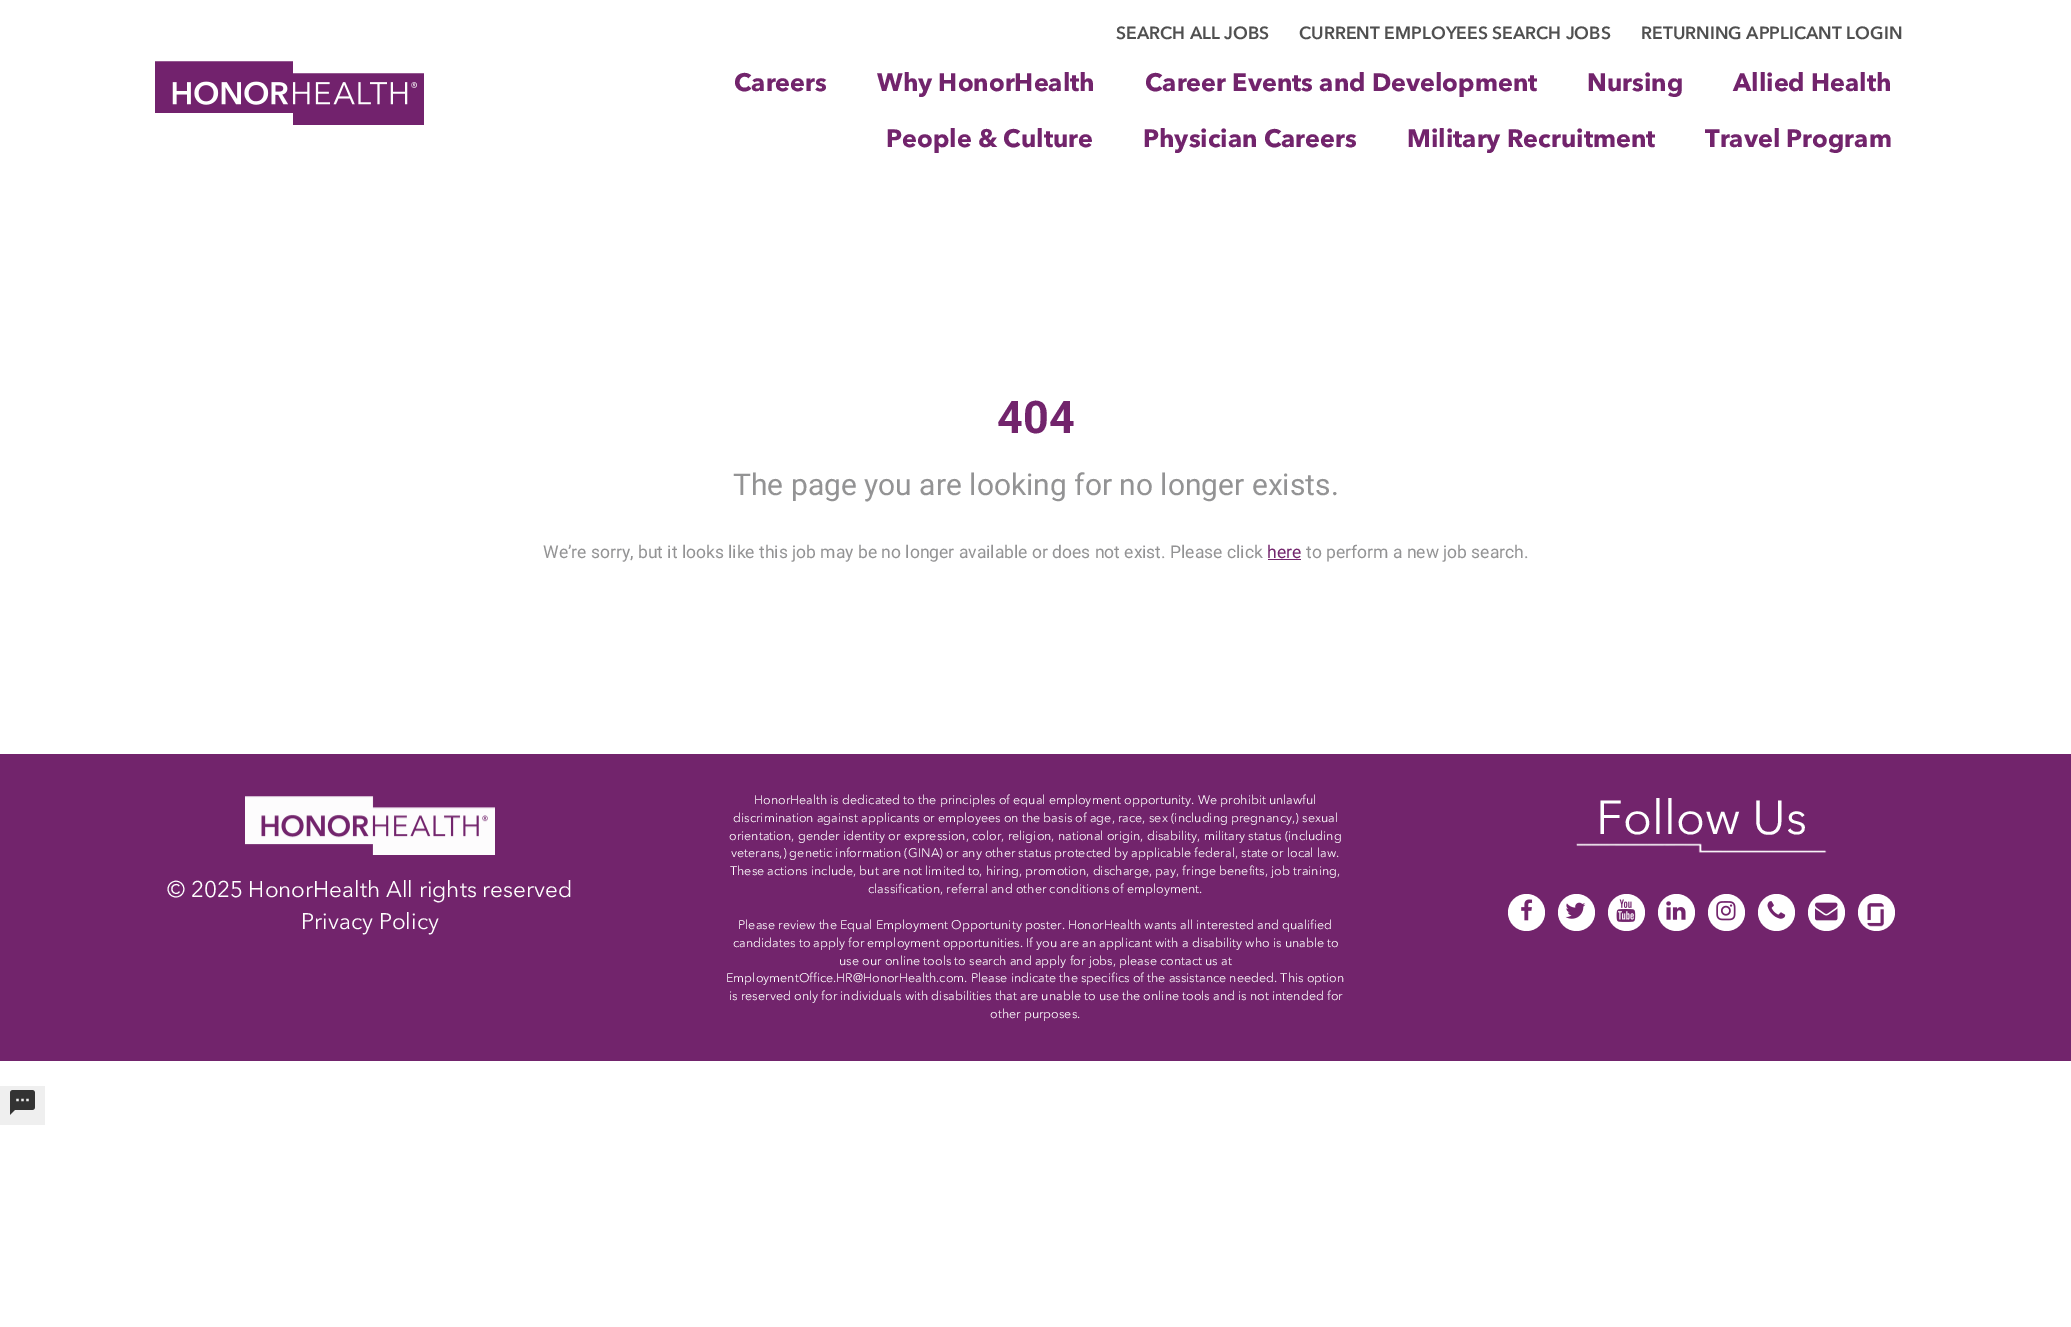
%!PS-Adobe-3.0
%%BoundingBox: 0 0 2071 1327
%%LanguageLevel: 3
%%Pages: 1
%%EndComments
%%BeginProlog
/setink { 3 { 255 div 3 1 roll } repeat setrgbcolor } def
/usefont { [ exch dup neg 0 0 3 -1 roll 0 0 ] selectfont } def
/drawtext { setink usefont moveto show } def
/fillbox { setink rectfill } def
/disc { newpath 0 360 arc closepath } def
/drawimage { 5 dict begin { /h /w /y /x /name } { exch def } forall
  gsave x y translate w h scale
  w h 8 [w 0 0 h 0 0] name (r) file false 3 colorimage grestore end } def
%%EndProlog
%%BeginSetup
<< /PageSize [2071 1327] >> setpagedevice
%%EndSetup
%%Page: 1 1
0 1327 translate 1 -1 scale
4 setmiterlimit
0 0 2071 1327 255 255 255 fillbox
(assets/img1.rgb) 155 61 269 64 drawimage
(SEARCH ALL JOBS) 1116 39 /AvenirNext-Bold 17.5 80 80 80 drawtext
(CURRENT EMPLOYEES SEARCH JOBS) 1299 39 /AvenirNext-Bold 17.5 80 80 80 drawtext
(RETURNING APPLICANT LOGIN) 1641 39 /AvenirNext-Bold 17.5 80 80 80 drawtext
(Careers) 734 91 /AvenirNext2-Bold 25 114 36 108 drawtext
(Why HonorHealth) 877 91 /AvenirNext2-Bold 25 114 36 108 drawtext
(Career Events and Development) 1145 91 /AvenirNext2-Bold 25 114 36 108 drawtext
(Nursing) 1587 91 /AvenirNext2-Bold 25 114 36 108 drawtext
(Allied Health) 1733 91 /AvenirNext2-Bold 25 114 36 108 drawtext
(People & Culture) 886 147 /AvenirNext2-Bold 25 114 36 108 drawtext
(Physician Careers) 1143 147 /AvenirNext2-Bold 25 114 36 108 drawtext
(Military Recruitment) 1407 147 /AvenirNext2-Bold 25 114 36 108 drawtext
(Travel Program) 1705 147 /AvenirNext2-Bold 25 114 36 108 drawtext
(404) 997 433 /Roboto-Bold 45 114 36 108 drawtext
(The page you are looking for no longer exists.) 733 495 /Roboto-Regular 30 147 147 148 drawtext
(We’re sorry, but it looks like this job may be no longer available or does not exist. Please click) 543 558 /Roboto-Regular 17.5 147 147 148 drawtext
(here) 1267 558 /Roboto-Regular 17.5 114 36 108 drawtext
1268 559 33 1 114 36 108 fillbox
(to perform a new job search.) 1306 558 /Roboto-Regular 17.5 147 147 148 drawtext
0 754 2071 307 114 36 108 fillbox
(HonorHealth is dedicated to the principles of equal employment opportunity. We prohibit unlawful) 754 804 /AvenirNext-Regular 12.5 255 255 255 drawtext
(discrimination against applicants or employees on the basis of age, race, sex \(including pregnancy,\) sexual) 733 822 /AvenirNext-Regular 12.5 255 255 255 drawtext
(orientation, gender identity or expression, color, religion, national origin, disability, military status \(including) 729 840 /AvenirNext-Regular 12.5 255 255 255 drawtext
(veterans,\) genetic information \(GINA\) or any other status protected by applicable federal, state or local law.) 731 857 /AvenirNext-Regular 12.5 255 255 255 drawtext
(These actions include, but are not limited to, hiring, promotion, discharge, pay, fringe benefits, job training,) 730 875 /AvenirNext-Regular 12.5 255 255 255 drawtext
(classification, referral and other conditions of employment.) 868 893 /AvenirNext-Regular 12.5 255 255 255 drawtext
(Please review the Equal Employment Opportunity poster. HonorHealth wants all interested and qualified) 738 929 /AvenirNext-Regular 12.5 255 255 255 drawtext
(candidates to apply for employment opportunities. If you are an applicant with a disability who is unable to) 733 947 /AvenirNext-Regular 12.5 255 255 255 drawtext
(use our online tools to search and apply for jobs, please contact us at) 839 965 /AvenirNext-Regular 12.5 255 255 255 drawtext
(EmploymentOffice.HR@HonorHealth.com. Please indicate the specifics of the assistance needed. This option) 726 982 /AvenirNext-Regular 12.5 255 255 255 drawtext
(is reserved only for individuals with disabilities that are unable to use the online tools and is not intended for) 729 1000 /AvenirNext-Regular 12.5 255 255 255 drawtext
(other purposes.) 990 1018 /AvenirNext-Regular 12.5 255 255 255 drawtext
(Follow Us) 1596 834 /AvenirNext-Regular 47.5 255 255 255 drawtext
(assets/img2.rgb) 1576 843 251 10 drawimage
1526.5 912.5 18.5 disc fill
(assets/img3.rgb) 1521 899 12 22 drawimage
1576.5 912.5 18.5 disc fill
(assets/img4.rgb) 1565 902 21 17 drawimage
1626.5 912.5 18.5 disc fill
(assets/img5.rgb) 1616 899 20 23 drawimage
1676.5 912.5 18.5 disc fill
(assets/img6.rgb) 1666 901 20 19 drawimage
1726.5 912.5 18.5 disc fill
(assets/img7.rgb) 1716 901 20 20 drawimage
1776.5 912.5 18.5 disc fill
(assets/img8.rgb) 1767 901 19 18 drawimage
1826.5 912.5 18.5 disc fill
(assets/img9.rgb) 1815 902 23 19 drawimage
1876.5 912.5 18.5 disc fill
(assets/img10.rgb) 1867 903 17 24 drawimage
(assets/img11.rgb) 245 796 250 59 drawimage
(© 2025 HonorHealth All rights reserved) 167 897 /AvenirNext-Regular 22.5 255 255 255 drawtext
(Privacy Policy) 301 929 /AvenirNext-Regular 22.5 255 255 255 drawtext
0 1086 45 39 239 239 239 fillbox
(assets/img12.rgb) 10 1090 25 25 drawimage
showpage
%%EOF
